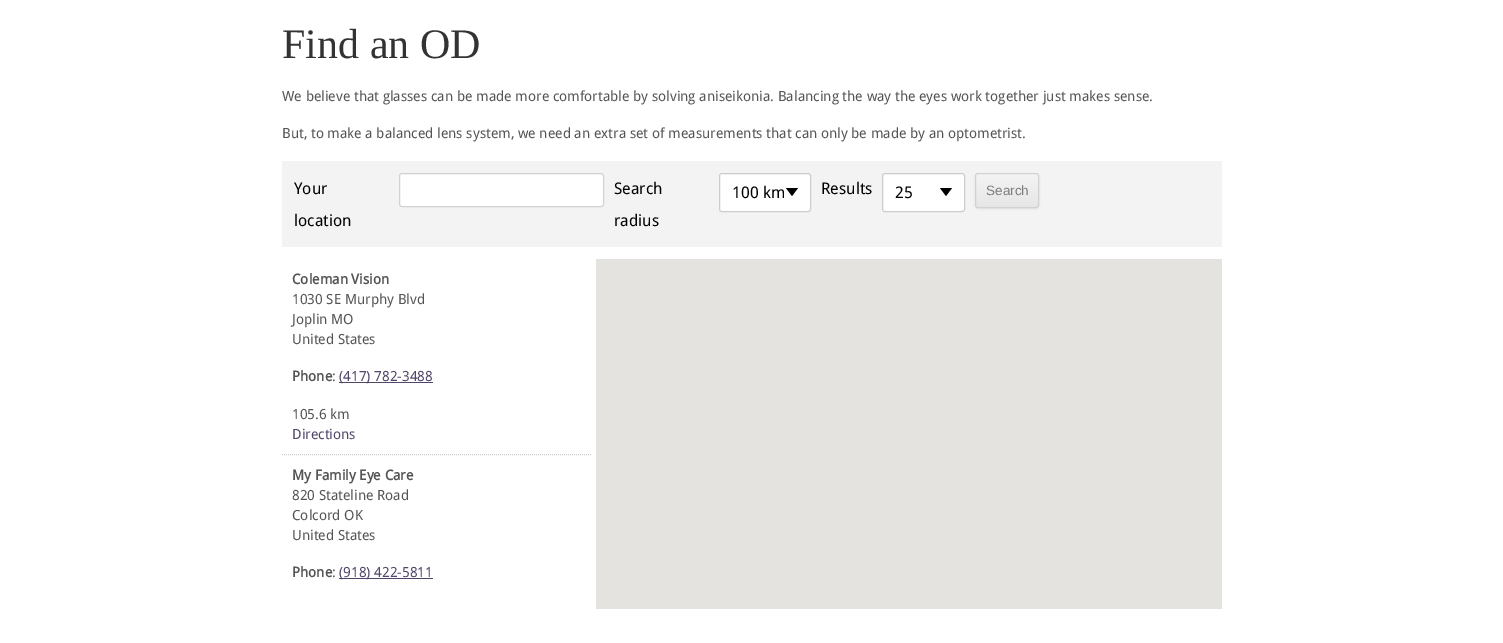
%!PS-Adobe-3.0
%%BoundingBox: 0 0 1503 643
%%LanguageLevel: 3
%%Pages: 1
%%EndComments
%%BeginProlog
/setink { 3 { 255 div 3 1 roll } repeat setrgbcolor } def
/usefont { [ exch dup neg 0 0 3 -1 roll 0 0 ] selectfont } def
/drawtext { setink usefont moveto show } def
/fillbox { setink rectfill } def
/setalpha { dup .setfillconstantalpha .setstrokeconstantalpha } def
/rrect { 5 dict begin { /r /h /w /y /x } { exch def } forall
  x r add y moveto x w add y 2 copy h add r arct x w add y h add x 1 index r arct
  x y h add x y r arct x y 2 copy exch w add exch r arct closepath end } def
/softshadow { 12 dict begin { /a /b /q /h /w /y /x } { exch def } forall gsave /was 0 def
  9 -2 -9 { dup b mul 4 div /e exch def 1 sub .425 mul 2.718 exch exp 1 add a .99 .min exch div /now exch def
    1 1 now sub 1 was sub div sub setalpha /was now def
    w h .min e 2 mul add 0 gt { x e sub y e sub w e 2 mul add h e 2 mul add
      q e add b .6 mul add w h .min 2 div e add .min 0 .max rrect fill } if } for grestore end } def
%%EndProlog
%%BeginSetup
<< /PageSize [1503 643] /PageUsesTransparency true >> setpagedevice
%%EndSetup
%%Page: 1 1
0 .pushpdf14devicefilter
0 643 translate 1 -1 scale
4 setmiterlimit
0 0 1503 643 255 255 255 fillbox
(Find an OD) 282 58 /LiberationSerif-Regular 42 51 51 51 drawtext
(We believe that glasses can be made more comfortable by solving aniseikonia. Balancing the way the eyes work together just makes sense.) 282 101 /DroidSans-Regular 14 85 85 85 drawtext
(But, to make a balanced lens system, we need an extra set of measurements that can only be made by an optometrist.) 282 138 /DroidSans-Regular 14 85 85 85 drawtext
282 161 940 86 244 243 243 fillbox
(Your) 294 194 /DroidSans-Regular 16 0 0 0 drawtext
(location) 294 226 /DroidSans-Regular 16 0 0 0 drawtext
255 255 255 setink
399.5 173.5 204 33 2.5 rrect gsave fill grestore
210 210 210 setink
stroke
(Search) 614 194 /DroidSans-Regular 16 0 0 0 drawtext
(radius) 614 226 /DroidSans-Regular 16 0 0 0 drawtext
255 255 255 setink
719.5 173.5 91 38 2.5 rrect gsave fill grestore
204 204 204 setink
stroke
(100 km) 732 198 /DroidSans-Regular 16 0 0 0 drawtext
786 188 moveto 798 188 lineto 792 196 lineto closepath fill
226 225 225 setink
811 210 moveto 810 211 lineto 810.5 211.5 lineto closepath fill
225 225 225 setink
719 210 moveto 720 211 lineto 719.5 211.5 lineto closepath fill
(Results) 821 194 /DroidSans-Regular 16 0 0 0 drawtext
255 255 255 setink
882.5 173.5 82 38 2.5 rrect gsave fill grestore
204 204 204 setink
stroke
(25) 895 198 /DroidSans-Regular 16 0 0 0 drawtext
940 188 moveto 952 188 lineto 946 196 lineto closepath fill
226 225 225 setink
965 210 moveto 964 211 lineto 964.5 211.5 lineto closepath fill
225 225 225 setink
882 210 moveto 883 211 lineto 882.5 211.5 lineto closepath fill
64 64 64 setink
975 174 64 35 3 1 0.1 softshadow
gsave
975 173 64 35 3 rrect clip newpath
gsave 975 174 moveto 1039 174 lineto 1039 207 lineto 975 207 lineto closepath clip newpath
<< /ShadingType 2 /ColorSpace /DeviceRGB /Coords [1007 174 1007 207] /Extend [true true] /Function << /FunctionType 2 /Domain [0 1] /C0 [0.957 0.957 0.957] /C1 [0.902 0.902 0.902] /N 1 >> >> shfill grestore
grestore
210 210 210 setink
975.5 173.5 63 34 2.5 rrect stroke
(Search) 986 195 /LiberationSans-Regular 13.5 124 124 124 drawtext
204 204 204 setink
[1 1] 0 setdash
282 454.5 moveto 592 454.5 lineto stroke
(Coleman Vision) 292 284 /DroidSans-Bold 14 85 85 85 drawtext
(1030 SE Murphy Blvd) 292 304 /DroidSans-Regular 14 85 85 85 drawtext
(Joplin MO) 292 324 /DroidSans-Regular 14 85 85 85 drawtext
(United States) 292 344 /DroidSans-Regular 14 85 85 85 drawtext
(Phone) 292 381 /DroidSans-Bold 14 85 85 85 drawtext
(:) 332 381 /DroidSans-Regular 14 85 85 85 drawtext
339 382 94 1 82 69 106 fillbox
(\(417\) 782-3488) 339 381 /DroidSans-Regular 14 82 69 106 drawtext
(105.6 km) 292 419 /DroidSans-Regular 14 85 85 85 drawtext
(Directions) 292 439 /DroidSans-Regular 14 82 69 106 drawtext
(My Family Eye Care) 292 480 /DroidSans-Bold 14 85 85 85 drawtext
(820 Stateline Road) 292 500 /DroidSans-Regular 14 85 85 85 drawtext
(Colcord OK) 292 520 /DroidSans-Regular 14 85 85 85 drawtext
(United States) 292 540 /DroidSans-Regular 14 85 85 85 drawtext
(Phone) 292 577 /DroidSans-Bold 14 85 85 85 drawtext
(:) 332 577 /DroidSans-Regular 14 85 85 85 drawtext
339 578 94 1 82 69 106 fillbox
(\(918\) 422-5811) 339 577 /DroidSans-Regular 14 82 69 106 drawtext
596 259 626 350 229 227 223 fillbox
.poppdf14devicefilter showpage
%%EOF
